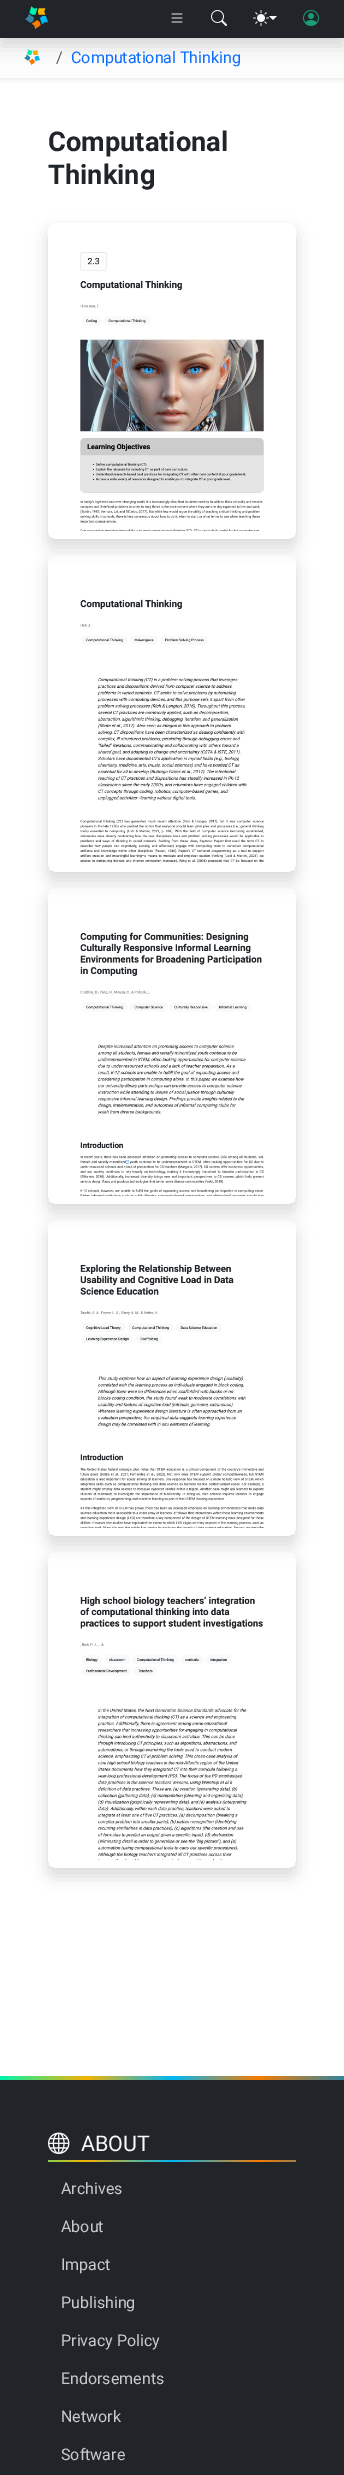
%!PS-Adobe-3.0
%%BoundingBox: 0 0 344 2475
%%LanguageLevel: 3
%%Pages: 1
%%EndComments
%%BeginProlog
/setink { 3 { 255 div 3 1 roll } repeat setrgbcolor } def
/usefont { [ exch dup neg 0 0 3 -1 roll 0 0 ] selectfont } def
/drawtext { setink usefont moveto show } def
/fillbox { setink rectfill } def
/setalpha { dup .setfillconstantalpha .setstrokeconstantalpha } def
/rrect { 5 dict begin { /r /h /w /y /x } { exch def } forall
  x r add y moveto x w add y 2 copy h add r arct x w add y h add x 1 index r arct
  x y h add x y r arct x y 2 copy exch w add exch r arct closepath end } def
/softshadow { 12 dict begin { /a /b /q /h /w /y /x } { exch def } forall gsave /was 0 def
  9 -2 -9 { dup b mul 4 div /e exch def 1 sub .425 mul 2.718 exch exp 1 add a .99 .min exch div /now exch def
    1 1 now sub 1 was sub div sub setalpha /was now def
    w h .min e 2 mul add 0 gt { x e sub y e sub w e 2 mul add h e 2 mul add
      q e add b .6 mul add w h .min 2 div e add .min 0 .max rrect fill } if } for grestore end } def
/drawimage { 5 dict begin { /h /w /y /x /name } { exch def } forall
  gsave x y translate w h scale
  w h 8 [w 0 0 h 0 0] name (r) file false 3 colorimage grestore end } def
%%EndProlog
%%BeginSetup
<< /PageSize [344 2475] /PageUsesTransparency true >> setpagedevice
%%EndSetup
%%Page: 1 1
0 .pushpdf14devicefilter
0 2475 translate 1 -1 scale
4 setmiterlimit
0 0 344 2475 255 255 255 fillbox
0 0 0 setink
0 40 344 40 0 2 0.07 softshadow
0 39 344 39 252 252 253 fillbox
(assets/img6.rgb) 24 49 16 16 drawimage
0 0 0 setink
0 8 344 38 0 8 0.15 softshadow
0 0 344 38 33 37 41 fillbox
(assets/img1.rgb) 25 6 23 23 drawimage
(assets/img2.rgb) 171 13 12 10 drawimage
(assets/img3.rgb) 211 10 16 16 drawimage
(assets/img4.rgb) 253 10 16 16 drawimage
248 249 250 setink
269 16 moveto 277 16 lineto 273 20 lineto closepath fill
(assets/img5.rgb) 303 10 16 16 drawimage
(/) 56 63 /Roboto-Regular 16 88 91 94 drawtext
(Computational Thinking) 71 63 /Roboto-Regular 16 13 110 253 drawtext
(Computational) 48 151 /Roboto-Bold 27.25 33 37 41 drawtext
(Thinking) 48 184 /Roboto-Bold 27.25 33 37 41 drawtext
gsave
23 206 moveto 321 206 lineto 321 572 lineto 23 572 lineto closepath 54 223 moveto 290 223 lineto 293.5 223 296 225.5 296 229 curveto 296 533 lineto 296 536.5 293.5 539 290 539 curveto 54 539 lineto 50.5 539 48 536.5 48 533 curveto 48 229 lineto 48 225.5 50.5 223 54 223 curveto closepath eoclip newpath
0 0 0 setink
48 231 248 316 6 8 0.15 softshadow
grestore
(assets/img7.rgb) 80 252 184 279 drawimage
gsave
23 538 moveto 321 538 lineto 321 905 lineto 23 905 lineto closepath 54 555 moveto 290 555 lineto 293.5 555 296 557.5 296 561 curveto 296 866 lineto 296 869.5 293.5 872 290 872 curveto 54 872 lineto 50.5 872 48 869.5 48 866 curveto 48 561 lineto 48 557.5 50.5 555 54 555 curveto closepath eoclip newpath
0 0 0 setink
48 563 248 317 6 8 0.15 softshadow
grestore
(assets/img8.rgb) 80 599 184 264 drawimage
gsave
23 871 moveto 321 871 lineto 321 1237 lineto 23 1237 lineto closepath 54 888 moveto 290 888 lineto 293.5 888 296 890.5 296 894 curveto 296 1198 lineto 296 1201.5 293.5 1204 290 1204 curveto 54 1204 lineto 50.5 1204 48 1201.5 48 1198 curveto 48 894 lineto 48 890.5 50.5 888 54 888 curveto closepath eoclip newpath
0 0 0 setink
48 896 248 316 6 8 0.15 softshadow
grestore
(assets/img9.rgb) 80 932 184 264 drawimage
gsave
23 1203 moveto 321 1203 lineto 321 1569 lineto 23 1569 lineto closepath 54 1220 moveto 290 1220 lineto 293.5 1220 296 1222.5 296 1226 curveto 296 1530 lineto 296 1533.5 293.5 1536 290 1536 curveto 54 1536 lineto 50.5 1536 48 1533.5 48 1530 curveto 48 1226 lineto 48 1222.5 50.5 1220 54 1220 curveto closepath eoclip newpath
0 0 0 setink
48 1228 248 316 6 8 0.15 softshadow
grestore
(assets/img10.rgb) 80 1264 184 264 drawimage
gsave
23 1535 moveto 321 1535 lineto 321 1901 lineto 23 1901 lineto closepath 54 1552 moveto 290 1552 lineto 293.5 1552 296 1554.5 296 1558 curveto 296 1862 lineto 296 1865.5 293.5 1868 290 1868 curveto 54 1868 lineto 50.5 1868 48 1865.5 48 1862 curveto 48 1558 lineto 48 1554.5 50.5 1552 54 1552 curveto closepath eoclip newpath
0 0 0 setink
48 1560 248 316 6 8 0.15 softshadow
grestore
(assets/img11.rgb) 80 1596 183 264 drawimage
gsave 0 2076 moveto 344 2076 lineto 344 2080 lineto 0 2080 lineto closepath clip newpath
<< /ShadingType 2 /ColorSpace /DeviceRGB /Coords [0 1238 344 1238] /Extend [true true] /Function << /FunctionType 3 /Domain [0 1] /Functions [<< /FunctionType 2 /Domain [0 1] /C0 [0 0.961 0.675] /C1 [0.961 0.702 0.008] /N 1 >> << /FunctionType 2 /Domain [0 1] /C0 [0.961 0.702 0.008] /C1 [0 0.722 0.961] /N 1 >> << /FunctionType 2 /Domain [0 1] /C0 [0 0.722 0.961] /C1 [0.961 0.486 0] /N 1 >> << /FunctionType 2 /Domain [0 1] /C0 [0.961 0.486 0] /C1 [0.208 0.522 0.627] /N 1 >>] /Bounds [0.25 0.5 0.75] /Encode [0 1 0 1 0 1 0 1] >> >> shfill grestore
0 2080 344 395 33 37 41 fillbox
(assets/img12.rgb) 48 2132 22 22 drawimage
(ABOUT) 81 2151 /Roboto-Regular 21.5 248 249 250 drawtext
gsave 48 2160 moveto 296 2160 lineto 296 2162 lineto 48 2162 lineto closepath clip newpath
<< /ShadingType 2 /ColorSpace /DeviceRGB /Coords [0 1238 344 1238] /Extend [true true] /Function << /FunctionType 3 /Domain [0 1] /Functions [<< /FunctionType 2 /Domain [0 1] /C0 [0 0.961 0.675] /C1 [0.961 0.702 0.008] /N 1 >> << /FunctionType 2 /Domain [0 1] /C0 [0.961 0.702 0.008] /C1 [0 0.722 0.961] /N 1 >> << /FunctionType 2 /Domain [0 1] /C0 [0 0.722 0.961] /C1 [0.961 0.486 0] /N 1 >> << /FunctionType 2 /Domain [0 1] /C0 [0.961 0.486 0] /C1 [0.208 0.522 0.627] /N 1 >>] /Bounds [0.25 0.5 0.75] /Encode [0 1 0 1 0 1 0 1] >> >> shfill grestore
(Archives) 61 2194 /Roboto-Regular 16 200 201 202 drawtext
(About) 61 2232 /Roboto-Regular 16 200 201 202 drawtext
(Impact) 61 2270 /Roboto-Regular 16 200 201 202 drawtext
(Publishing) 61 2308 /Roboto-Regular 16 200 201 202 drawtext
(Privacy Policy) 61 2346 /Roboto-Regular 16 200 201 202 drawtext
(Endorsements) 61 2384 /Roboto-Regular 16 200 201 202 drawtext
(Network) 61 2422 /Roboto-Regular 16 200 201 202 drawtext
(Software) 61 2460 /Roboto-Regular 16 200 201 202 drawtext
.poppdf14devicefilter showpage
%%EOF
